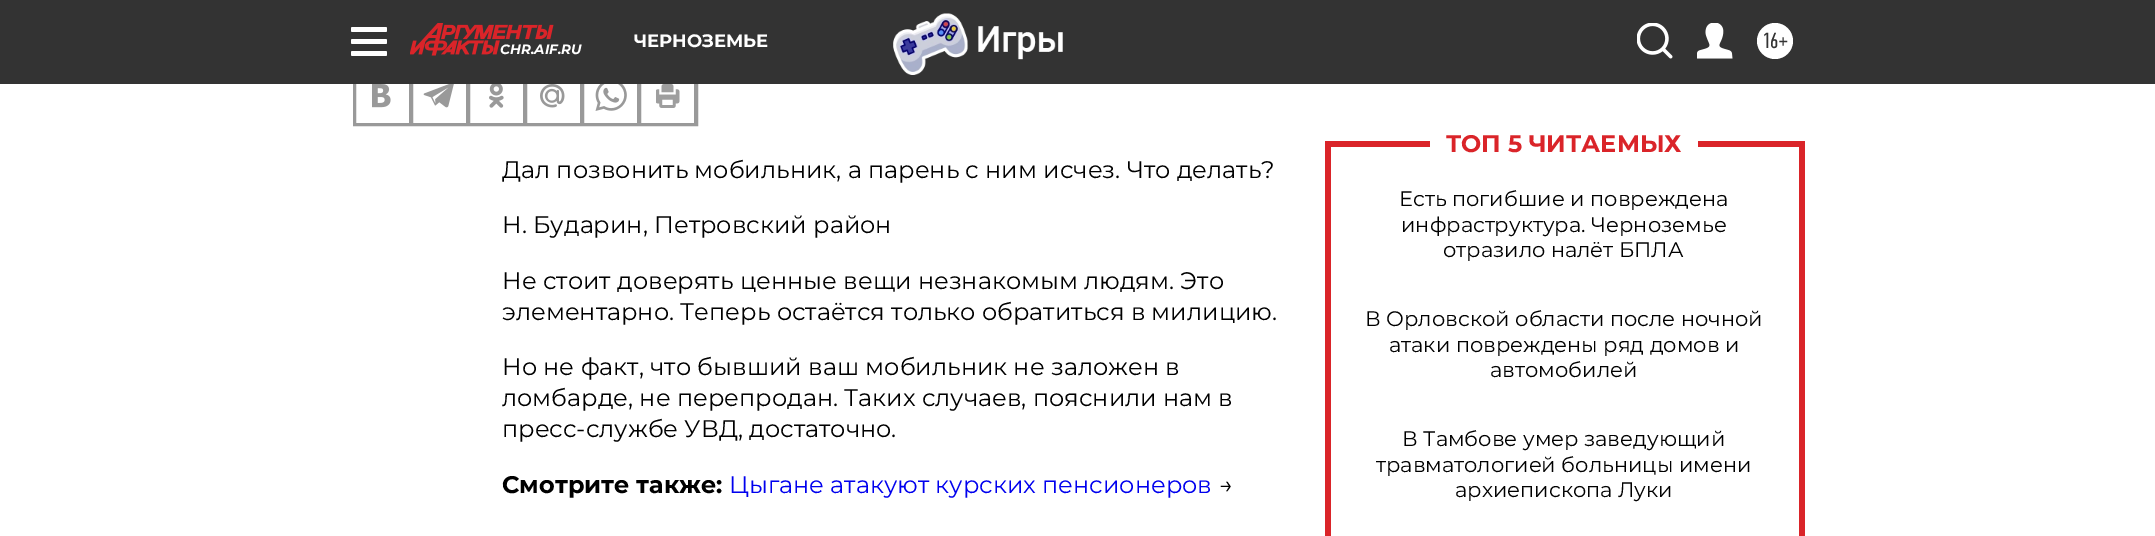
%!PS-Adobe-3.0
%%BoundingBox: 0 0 2155 536
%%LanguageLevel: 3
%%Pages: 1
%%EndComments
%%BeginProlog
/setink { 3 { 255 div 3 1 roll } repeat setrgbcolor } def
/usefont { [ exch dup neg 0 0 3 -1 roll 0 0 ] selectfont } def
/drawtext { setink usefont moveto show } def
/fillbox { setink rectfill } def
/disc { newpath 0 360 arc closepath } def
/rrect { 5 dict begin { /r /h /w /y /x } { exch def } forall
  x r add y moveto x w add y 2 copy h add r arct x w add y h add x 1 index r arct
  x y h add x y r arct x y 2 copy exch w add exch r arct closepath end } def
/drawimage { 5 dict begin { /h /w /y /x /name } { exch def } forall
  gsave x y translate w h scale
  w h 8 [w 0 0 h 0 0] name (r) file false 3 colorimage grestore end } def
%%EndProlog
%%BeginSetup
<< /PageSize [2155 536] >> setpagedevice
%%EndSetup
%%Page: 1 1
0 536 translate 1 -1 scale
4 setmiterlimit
0 0 2155 536 255 255 255 fillbox
153 153 153 setink
2 setlinewidth
354 67 343 58 rectstroke
355 69 55 55 rectstroke
412 69 55 55 rectstroke
469 69 55 55 rectstroke
526 69 55 55 rectstroke
583 69 55 55 rectstroke
640 69 55 55 rectstroke
0 0 2155 84 51 51 51 fillbox
255 255 255 setink
351 27 36 5 1.5 rrect fill
351 39 36 5 1.5 rrect fill
351 51 36 5 1.5 rrect fill
(ЧЕРНОЗЕМЬЕ) 634 47 /Montserrat-Bold 18 255 255 255 drawtext
(assets/img1.rgb) 893 13 170 62 drawimage
(assets/img2.rgb) 1637 23 36 36 drawimage
(assets/img3.rgb) 1697 23 36 36 drawimage
1775 41 18 disc fill
(16+) 1762 48 /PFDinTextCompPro-Regular 22 51 51 51 drawtext
(assets/img4.rgb) 410 23 144 33 drawimage
(CHR.AIF.RU) 500 54 /Montserrat-BoldItalic 13.5 255 255 255 drawtext
(assets/img5.rgb) 372 84 19 24 drawimage
(assets/img6.rgb) 423 84 31 24 drawimage
(assets/img7.rgb) 489 84 15 24 drawimage
(assets/img8.rgb) 540 84 25 24 drawimage
(assets/img9.rgb) 595 84 32 27 drawimage
(assets/img10.rgb) 656 84 24 24 drawimage
(Дал позвонить мобильник, а парень с ним исчез. Что делать?) 502 178 /Montserrat-Regular 24 0 0 0 drawtext
(Н. Бударин, Петровский район) 502 233 /Montserrat-Regular 24 0 0 0 drawtext
(Не стоит доверять ценные вещи незнакомым людям. Это) 502 289 /Montserrat-Regular 24 0 0 0 drawtext
(элементарно. Теперь остаётся только обратиться в милицию.) 502 320 /Montserrat-Regular 24 0 0 0 drawtext
(Но не факт, что бывший ваш мобильник не заложен в) 502 375 /Montserrat-Regular 24 0 0 0 drawtext
(ломбарде, не перепродан. Таких случаев, пояснили нам в) 502 406 /Montserrat-Regular 24 0 0 0 drawtext
(пресс-службе УВД, достаточно.) 502 437 /Montserrat-Regular 24 0 0 0 drawtext
(Смотрите также:) 502 493 /Montserrat-Bold 24 0 0 0 drawtext
(Цыгане атакуют курских пенсионеров) 729 493 /Montserrat-Regular 24 0 0 238 drawtext
(→) 1219 493 /Montserrat-Regular 24 0 0 0 drawtext
1325 141 6 395 218 36 41 fillbox
1325 141 105 6 218 36 41 fillbox
(ТОП 5 ЧИТАЕМЫХ) 1446 152 /Montserrat-Bold 24 218 36 41 drawtext
1799 141 6 395 218 36 41 fillbox
1698 141 107 6 218 36 41 fillbox
(Есть погибшие и повреждена) 1399 206 /Montserrat-Regular 21 0 0 0 drawtext
(инфраструктура. Черноземье) 1401 232 /Montserrat-Regular 21 0 0 0 drawtext
(отразило налёт БПЛА) 1443 257 /Montserrat-Regular 21 0 0 0 drawtext
(В Орловской области после ночной) 1365 326 /Montserrat-Regular 21 0 0 0 drawtext
(атаки повреждены ряд домов и) 1389 352 /Montserrat-Regular 21 0 0 0 drawtext
(автомобилей) 1490 377 /Montserrat-Regular 21 0 0 0 drawtext
(В Тамбове умер заведующий) 1402 446 /Montserrat-Regular 21 0 0 0 drawtext
(травматологией больницы имени) 1376 472 /Montserrat-Regular 21 0 0 0 drawtext
(архиепископа Луки) 1455 497 /Montserrat-Regular 21 0 0 0 drawtext
showpage
%%EOF
